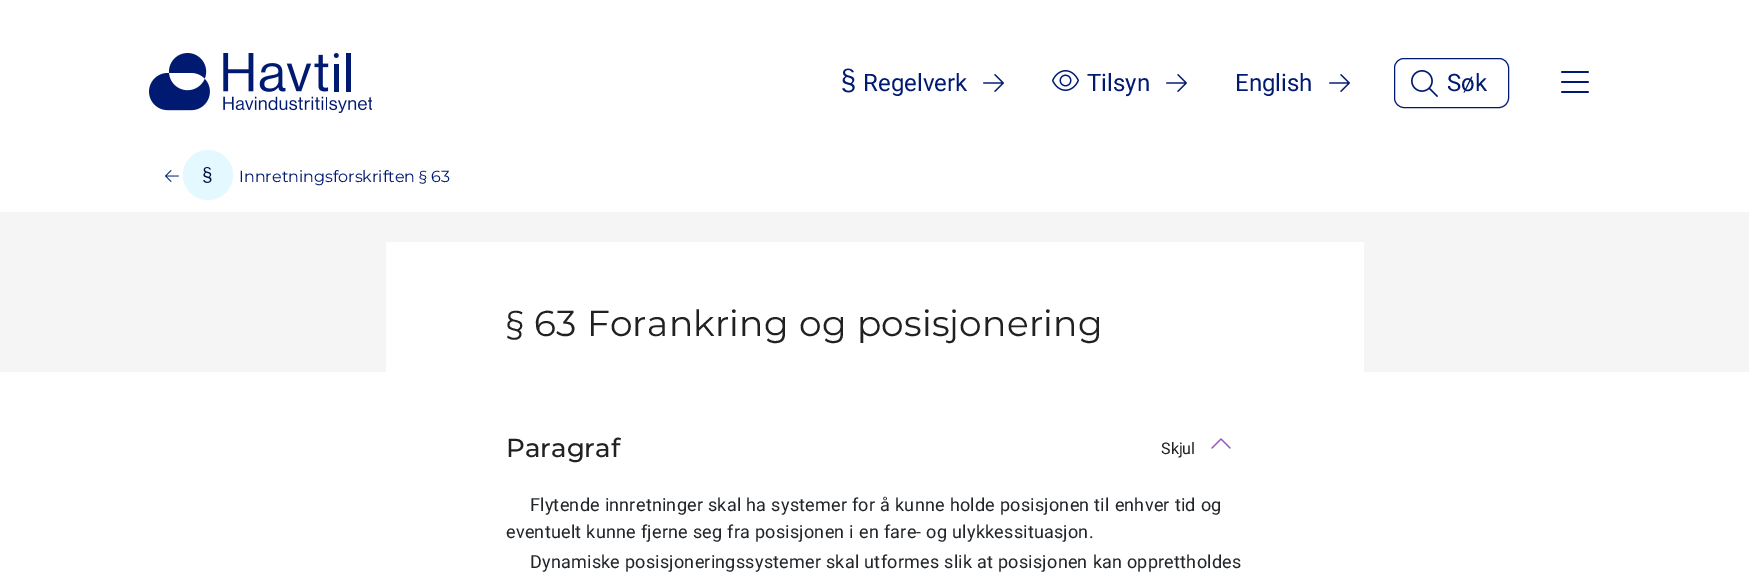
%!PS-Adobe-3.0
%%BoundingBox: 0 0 1749 575
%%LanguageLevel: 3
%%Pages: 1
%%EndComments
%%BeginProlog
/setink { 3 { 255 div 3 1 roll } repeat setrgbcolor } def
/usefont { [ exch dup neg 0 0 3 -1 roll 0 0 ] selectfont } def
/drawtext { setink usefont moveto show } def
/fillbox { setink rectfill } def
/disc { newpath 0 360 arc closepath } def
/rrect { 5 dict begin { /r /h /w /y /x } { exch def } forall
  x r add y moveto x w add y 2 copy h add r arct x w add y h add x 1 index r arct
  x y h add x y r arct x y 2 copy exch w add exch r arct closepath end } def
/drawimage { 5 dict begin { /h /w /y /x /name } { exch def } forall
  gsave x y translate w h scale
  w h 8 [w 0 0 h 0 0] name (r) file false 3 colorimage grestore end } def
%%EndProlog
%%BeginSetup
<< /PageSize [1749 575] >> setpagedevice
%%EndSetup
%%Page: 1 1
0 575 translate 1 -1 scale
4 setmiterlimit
0 0 1749 575 255 255 255 fillbox
(assets/img1.rgb) 149 53 223 60 drawimage
(assets/img2.rgb) 842 68 13 25 drawimage
(Regelverk) 863 91 /Roboto-Regular 24 0 26 114 drawtext
(assets/img3.rgb) 983 74 21 18 drawimage
(assets/img4.rgb) 1052 70 27 21 drawimage
(Tilsyn) 1087 91 /Roboto-Regular 24 0 26 114 drawtext
(assets/img3.rgb) 1166 74 21 18 drawimage
(English) 1235 91 /Roboto-Regular 24 0 26 114 drawtext
(assets/img3.rgb) 1329 74 21 18 drawimage
1394.5 58.5 114 49 9.5 rrect stroke
(assets/img5.rgb) 1411 70 27 27 drawimage
(Søk) 1447 91 /Roboto-Regular 24 0 26 114 drawtext
(assets/img6.rgb) 1561 71 28 22 drawimage
(assets/img7.rgb) 165 170 14 12 drawimage
227 248 255 setink
208 175 25 disc fill
(assets/img8.rgb) 203 167 9 16 drawimage
(Innretningsforskriften § 63) 239 182 /Montserrat-Regular 16 0 26 114 drawtext
0 212 1749 160 245 245 245 fillbox
386 242 978 130 255 255 255 fillbox
/Montserrat-Regular 36 usefont
33 33 33 setink
506 336 moveto 0.5 0 32 0.2 0 (§ 63 Forankring og posisjonering) awidthshow
(Paragraf) 506 457 /Montserrat-Medium 26 33 33 33 drawtext
(Skjul) 1161 454 /Roboto-Regular 16 33 33 33 drawtext
(assets/img9.rgb) 1211 438 20 11 drawimage
/Roboto-Regular 18 usefont
33 37 41 setink
530 511 moveto 0.25 0 32 0.22 0 (Flytende innretninger skal ha systemer for å kunne holde posisjonen til enhver tid og) awidthshow
506 538 moveto 0.25 0 32 0.22 0 (eventuelt kunne fjerne seg fra posisjonen i en fare- og ulykkessituasjon.) awidthshow
530 568 moveto 0.25 0 32 0.22 0 (Dynamiske posisjoneringssystemer skal utformes slik at posisjonen kan opprettholdes) awidthshow
showpage
%%EOF
